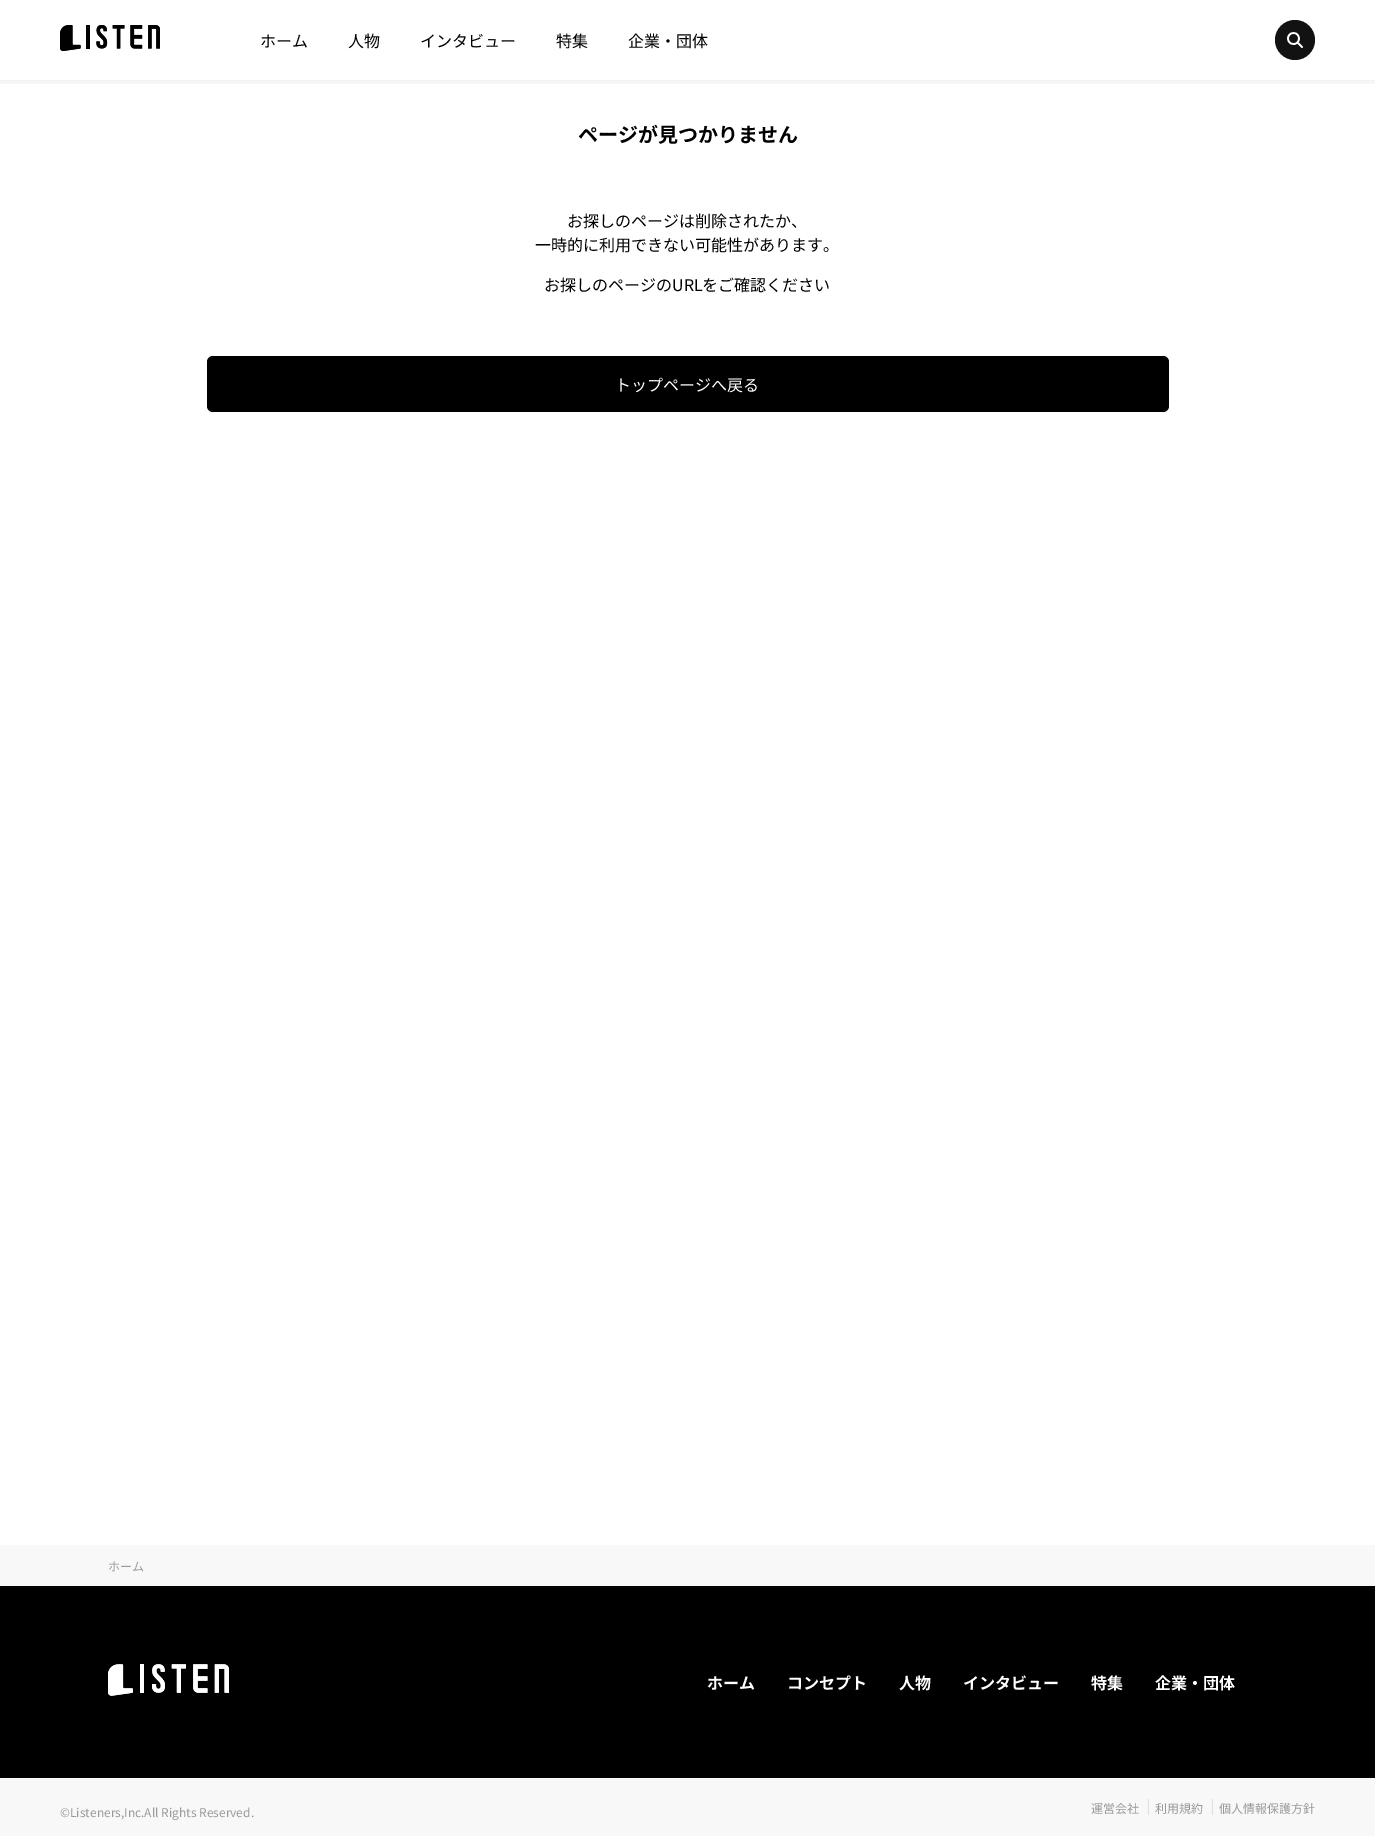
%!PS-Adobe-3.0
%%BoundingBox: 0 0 1375 1836
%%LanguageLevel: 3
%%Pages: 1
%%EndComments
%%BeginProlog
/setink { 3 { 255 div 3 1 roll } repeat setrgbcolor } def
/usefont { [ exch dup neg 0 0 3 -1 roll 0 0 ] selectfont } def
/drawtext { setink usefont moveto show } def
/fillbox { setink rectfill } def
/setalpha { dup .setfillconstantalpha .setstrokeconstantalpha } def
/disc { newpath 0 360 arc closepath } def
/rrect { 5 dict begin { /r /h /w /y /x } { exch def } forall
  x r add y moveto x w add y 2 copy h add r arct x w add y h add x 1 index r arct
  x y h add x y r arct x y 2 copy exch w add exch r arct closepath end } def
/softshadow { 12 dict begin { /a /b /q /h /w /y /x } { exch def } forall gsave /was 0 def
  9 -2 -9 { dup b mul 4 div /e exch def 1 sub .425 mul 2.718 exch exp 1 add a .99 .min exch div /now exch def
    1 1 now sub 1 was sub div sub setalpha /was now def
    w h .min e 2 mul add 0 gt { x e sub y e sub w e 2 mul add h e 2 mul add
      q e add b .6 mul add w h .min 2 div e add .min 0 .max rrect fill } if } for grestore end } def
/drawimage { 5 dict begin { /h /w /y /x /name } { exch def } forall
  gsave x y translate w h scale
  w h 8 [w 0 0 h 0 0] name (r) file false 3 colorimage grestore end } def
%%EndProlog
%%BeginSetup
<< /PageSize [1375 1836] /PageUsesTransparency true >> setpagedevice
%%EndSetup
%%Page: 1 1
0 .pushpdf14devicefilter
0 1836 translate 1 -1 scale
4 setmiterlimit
0 0 1375 1836 255 255 255 fillbox
gsave
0 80 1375 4 rectclip
0 0 0 setink
0 0 1375 80 0 5 0.1 softshadow
grestore
(assets/img1.rgb) 60 25 100 26 drawimage
(ホーム) 260 47 /NotoSansJP-Regular 16 0 0 0 drawtext
(人物) 348 47 /NotoSansJP-Regular 16 0 0 0 drawtext
(インタビュー) 420 47 /NotoSansJP-Regular 16 0 0 0 drawtext
(特集) 556 47 /NotoSansJP-Regular 16 0 0 0 drawtext
(企業・団体) 628 47 /NotoSansJP-Regular 16 0 0 0 drawtext
18 18 18 setink
1295 40 20 disc fill
(assets/img2.rgb) 1287 32 16 16 drawimage
(ページが見つかりません) 578 142 /NotoSansJP-Bold 20 0 0 0 drawtext
(お探しのページは削除されたか、) 567 227 /NotoSansJP-Regular 16 0 0 0 drawtext
(一時的に利用できない可能性があります。) 535 251 /NotoSansJP-Regular 16 0 0 0 drawtext
(お探しのページのURLをご確認ください) 544 291 /NotoSansJP-Regular 16 0 0 0 drawtext
207 356 962 56 6 rrect fill
(トップページへ戻る) 615 391 /NotoSansJP-Regular 16 255 255 255 drawtext
0 1545 1375 41 248 248 248 fillbox
(ホーム) 108 1571 /NotoSansJP-Regular 12 153 153 153 drawtext
0 1586 1375 192 0 0 0 fillbox
(assets/img3.rgb) 108 1664 121 32 drawimage
(ホーム) 707 1689 /NotoSansJP-Bold 16 255 255 255 drawtext
(コンセプト) 787 1689 /NotoSansJP-Bold 16 255 255 255 drawtext
(人物) 899 1689 /NotoSansJP-Bold 16 255 255 255 drawtext
(インタビュー) 963 1689 /NotoSansJP-Bold 16 255 255 255 drawtext
(特集) 1091 1689 /NotoSansJP-Bold 16 255 255 255 drawtext
(企業・団体) 1155 1689 /NotoSansJP-Bold 16 255 255 255 drawtext
0 1778 1375 58 248 248 248 fillbox
(©Listeners,Inc.All Rights Reserved.) 60 1817 /NotoSansJP-Regular 12 153 153 153 drawtext
(運営会社) 1091 1813 /NotoSansJP-Regular 12 153 153 153 drawtext
1148 1799 1 16 223 223 223 fillbox
(利用規約) 1155 1813 /NotoSansJP-Regular 12 153 153 153 drawtext
1212 1799 1 16 223 223 223 fillbox
(個人情報保護方針) 1219 1813 /NotoSansJP-Regular 12 153 153 153 drawtext
.poppdf14devicefilter showpage
%%EOF
